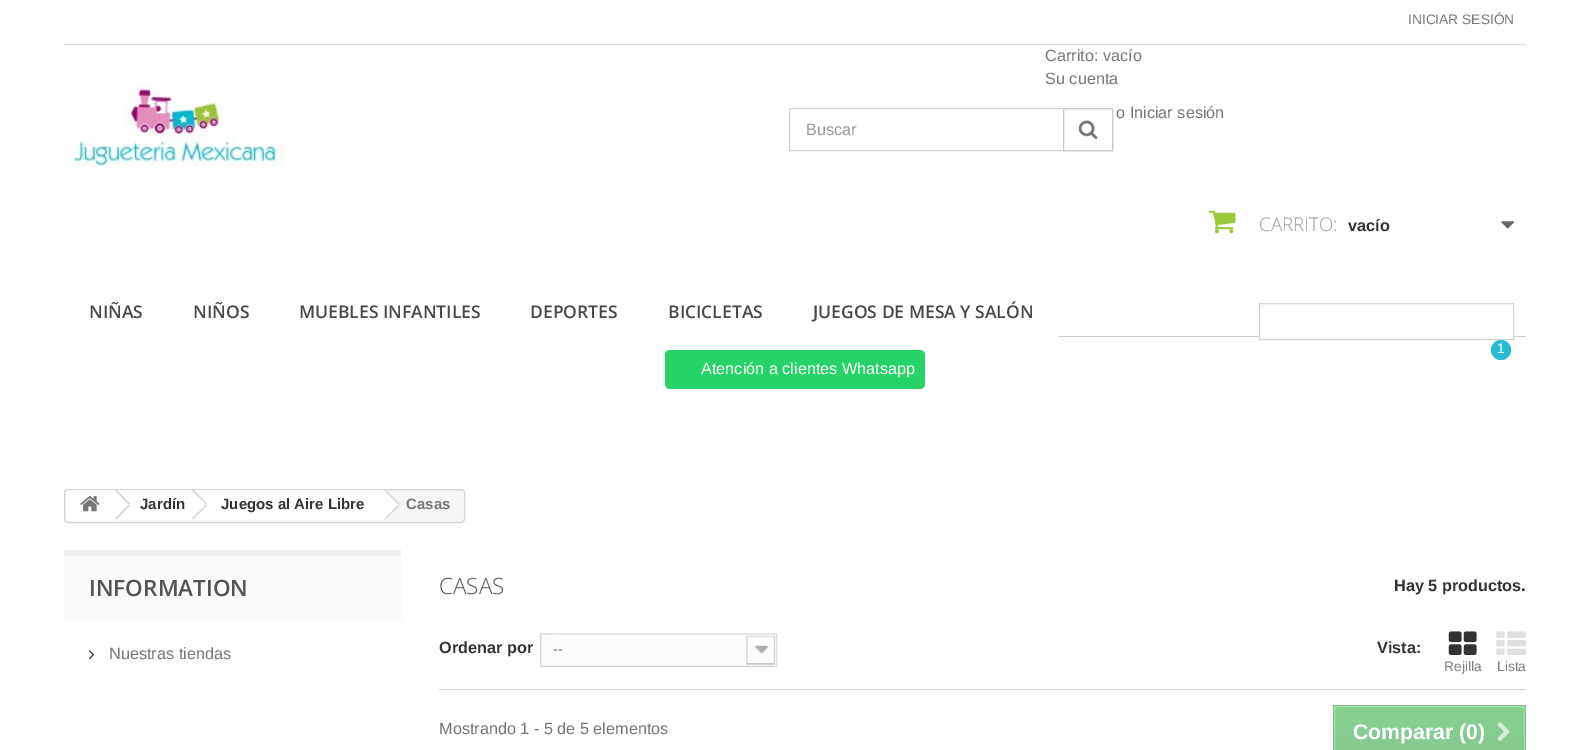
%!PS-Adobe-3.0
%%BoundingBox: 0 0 1589 750
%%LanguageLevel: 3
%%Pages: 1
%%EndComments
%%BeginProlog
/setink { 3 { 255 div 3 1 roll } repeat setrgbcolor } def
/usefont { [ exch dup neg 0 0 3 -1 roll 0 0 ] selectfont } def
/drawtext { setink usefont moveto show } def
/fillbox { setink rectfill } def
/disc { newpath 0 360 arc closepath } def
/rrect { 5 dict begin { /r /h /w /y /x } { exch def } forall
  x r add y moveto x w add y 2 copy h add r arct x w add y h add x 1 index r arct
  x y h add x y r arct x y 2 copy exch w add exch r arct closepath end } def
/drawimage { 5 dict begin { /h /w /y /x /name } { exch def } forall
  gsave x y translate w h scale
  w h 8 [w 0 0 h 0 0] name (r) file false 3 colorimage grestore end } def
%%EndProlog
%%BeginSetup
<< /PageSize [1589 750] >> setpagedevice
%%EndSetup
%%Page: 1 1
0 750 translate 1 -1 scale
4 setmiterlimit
0 0 1589 750 255 255 255 fillbox
64 44 1462 1 221 221 221 fillbox
(INICIAR SESIÓN) 1408 24 /LiberationSans-Regular 13.75 119 119 119 drawtext
(assets/img1.rgb) 64 86 220 81 drawimage
214 212 212 setink
789.5 108.5 323 42 rectstroke
(Buscar) 806 135 /LiberationSans-Regular 16.25 153 153 153 drawtext
204 204 204 setink
1063.5 108.5 49 42 rectstroke
(assets/img2.rgb) 1078 120 20 20 drawimage
(Carrito: vacío) 1045 61 /LiberationSans-Regular 16.25 119 119 119 drawtext
(Su cuenta) 1045 84 /LiberationSans-Regular 16.25 119 119 119 drawtext
(o Iniciar sesión) 1116 118 /LiberationSans-Regular 16.25 119 119 119 drawtext
(assets/img3.rgb) 1208 210 28 24 drawimage
(CARRITO:) 1259 231 /OpenSans-Light 18.75 153 153 153 drawtext
(vacío) 1348 231 /LiberationSans-Bold 16.25 51 51 51 drawtext
(assets/img4.rgb) 1501 221 13 8 drawimage
1059 336 467 1 204 204 204 fillbox
(NIÑAS) 89 318 /OpenSans-SemiBold 17.5 72 72 72 drawtext
(NIÑOS) 193 318 /OpenSans-SemiBold 17.5 72 72 72 drawtext
(MUEBLES INFANTILES) 299 318 /OpenSans-SemiBold 17.5 72 72 72 drawtext
(DEPORTES) 530 318 /OpenSans-SemiBold 17.5 72 72 72 drawtext
(BICICLETAS) 668 318 /OpenSans-SemiBold 17.5 72 72 72 drawtext
(JUEGOS DE MESA Y SALÓN) 813 318 /OpenSans-SemiBold 17.5 72 72 72 drawtext
1260 336 253 1 255 255 255 fillbox
214 212 212 setink
1259.5 303.5 254 36 rectstroke
41 187 212 setink
1501 350 10 disc fill
(1) 1497 353 /LiberationSans-Regular 13.75 255 255 255 drawtext
37 211 102 setink
665 350 260 39 5 rrect fill
(Atención a clientes Whatsapp) 701 374 /LiberationSans-Regular 16.25 255 255 255 drawtext
246 246 246 setink
64.5 489.5 400 33 3.5 rrect gsave fill grestore
214 212 212 setink
stroke
255 255 255 setink
70 490 moveto 114 490 lineto 114 521 lineto 70 521 lineto 68 521 66 519 66 517 curveto 66 494 lineto 66 492 68 490 70 490 curveto closepath fill
(assets/img5.rgb) 80 496 20 16 drawimage
114 490 80 30 255 255 255 fillbox
214 212 212 setink
116 489.5 moveto 130 503.5 lineto 129 504.5 lineto 115 490.5 lineto closepath fill
129 504.5 moveto 130 505.5 lineto 116 519.5 lineto 115 518.5 lineto closepath fill
(Jardín) 140 509 /LiberationSans-Bold 15 51 51 51 drawtext
255 255 255 setink
206.5 490.5 moveto 204 488 200 493.5 199 494.5 curveto 192.5 500.5 lineto 189 504 189 504.5 192.5 508 curveto 201 516.5 lineto 204.5 520 205 520 208.5 516.5 curveto 215 510 lineto 217 508 220.5 506 219 502.5 curveto closepath fill
194 490 189 30 255 255 255 fillbox
214 212 212 setink
193 489.5 moveto 207 503.5 lineto 206.5 504.5 lineto 192 490.5 lineto closepath fill
206.5 504.5 moveto 207 505.5 lineto 193 519.5 lineto 192 518.5 lineto closepath fill
(Juegos al Aire Libre) 221 509 /LiberationSans-Bold 15 51 51 51 drawtext
255 255 255 setink
386 490.5 moveto 385.5 490 lineto 383 490 lineto 382.5 490.5 lineto 370 502.5 lineto 369 503.5 369 505 370 506 curveto 382.5 518.5 lineto 383.5 519.5 385 519.5 386 518.5 curveto 398.5 506 lineto 399.5 505 399.5 503.5 398.5 502.5 curveto closepath fill
214 212 212 setink
385 489.5 moveto 399.5 503.5 lineto 398.5 504.5 lineto 384.5 490.5 lineto closepath fill
398.5 504.5 moveto 399.5 505.5 lineto 385 519.5 lineto 384.5 518.5 lineto closepath fill
(Casas) 406 509 /LiberationSans-Bold 15 119 119 119 drawtext
64 556 337 67 250 250 250 fillbox
64 550 337 6 238 238 238 fillbox
(INFORMATION) 89 596 /OpenSans-SemiBold 22.5 85 84 84 drawtext
(assets/img6.rgb) 88 650 7 10 drawimage
(Nuestras tiendas) 109 659 /LiberationSans-Regular 16.25 119 119 119 drawtext
(CASAS) 439 594 /OpenSans-Light 22.5 85 84 84 drawtext
(Hay 5 productos.) 1394 591 /LiberationSans-Bold 16.25 51 51 51 drawtext
439 689 1087 1 214 212 212 fillbox
(Ordenar por) 439 653 /LiberationSans-Bold 16.25 51 51 51 drawtext
(assets/img7.rgb) 540 633 13 34 drawimage
(assets/img8.rgb) 552 633 226 34 drawimage
(--) 553 654 /LiberationSans-Regular 15 102 102 102 drawtext
(Vista:) 1377 653 /LiberationSans-Bold 16.25 51 51 51 drawtext
(assets/img9.rgb) 1448 631 29 24 drawimage
(Rejilla) 1444 671 /LiberationSans-Regular 13.75 128 128 128 drawtext
(assets/img10.rgb) 1496 631 31 24 drawimage
(Lista) 1497 671 /LiberationSans-Regular 13.75 128 128 128 drawtext
(Mostrando 1 - 5 de 5 elementos) 439 734 /LiberationSans-Regular 16.25 119 119 119 drawtext
gsave 1335 707 moveto 1524 707 lineto 1524 750 lineto 1335 750 lineto closepath clip newpath
<< /ShadingType 2 /ColorSpace /DeviceRGB /Coords [1429 706 1429 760] /Extend [true true] /Function << /FunctionType 3 /Domain [0 1] /Functions [<< /FunctionType 2 /Domain [0 1] /C0 [0.522 0.816 0.565] /C1 [0.518 0.816 0.573] /N 1 >> << /FunctionType 2 /Domain [0 1] /C0 [0.518 0.816 0.573] /C1 [0.518 0.82 0.565] /N 1 >> << /FunctionType 2 /Domain [0 1] /C0 [0.518 0.82 0.565] /C1 [0.522 0.816 0.569] /N 1 >> << /FunctionType 2 /Domain [0 1] /C0 [0.522 0.816 0.569] /C1 [0.518 0.808 0.565] /N 1 >> << /FunctionType 2 /Domain [0 1] /C0 [0.518 0.808 0.565] /C1 [0.522 0.808 0.569] /N 1 >> << /FunctionType 2 /Domain [0 1] /C0 [0.522 0.808 0.569] /C1 [0.525 0.796 0.569] /N 1 >> << /FunctionType 2 /Domain [0 1] /C0 [0.525 0.796 0.569] /C1 [0.518 0.792 0.561] /N 1 >> << /FunctionType 2 /Domain [0 1] /C0 [0.518 0.792 0.561] /C1 [0.518 0.788 0.561] /N 1 >> << /FunctionType 2 /Domain [0 1] /C0 [0.518 0.788 0.561] /C1 [0.518 0.792 0.569] /N 1 >> << /FunctionType 2 /Domain [0 1] /C0 [0.518 0.792 0.569] /C1 [0.522 0.784 0.565] /N 1 >> << /FunctionType 2 /Domain [0 1] /C0 [0.522 0.784 0.565] /C1 [0.518 0.788 0.561] /N 1 >>] /Bounds [0.02 0.04 0.06 0.38 0.4 0.66 0.74 0.91 0.94 0.96] /Encode [0 1 0 1 0 1 0 1 0 1 0 1 0 1 0 1 0 1 0 1 0 1] >> >> shfill grestore
1333 705 193 1 126 189 137 fillbox
1525 705 1 45 113 172 122 fillbox
1333 705 1 45 126 189 137 fillbox
165 228 167 setink
1334.5 706.5 190 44 rectstroke
(Comparar \(0\)) 1353 739 /LiberationSans-Bold 21.25 255 255 255 drawtext
(assets/img11.rgb) 1497 722 13 20 drawimage
showpage
%%EOF
